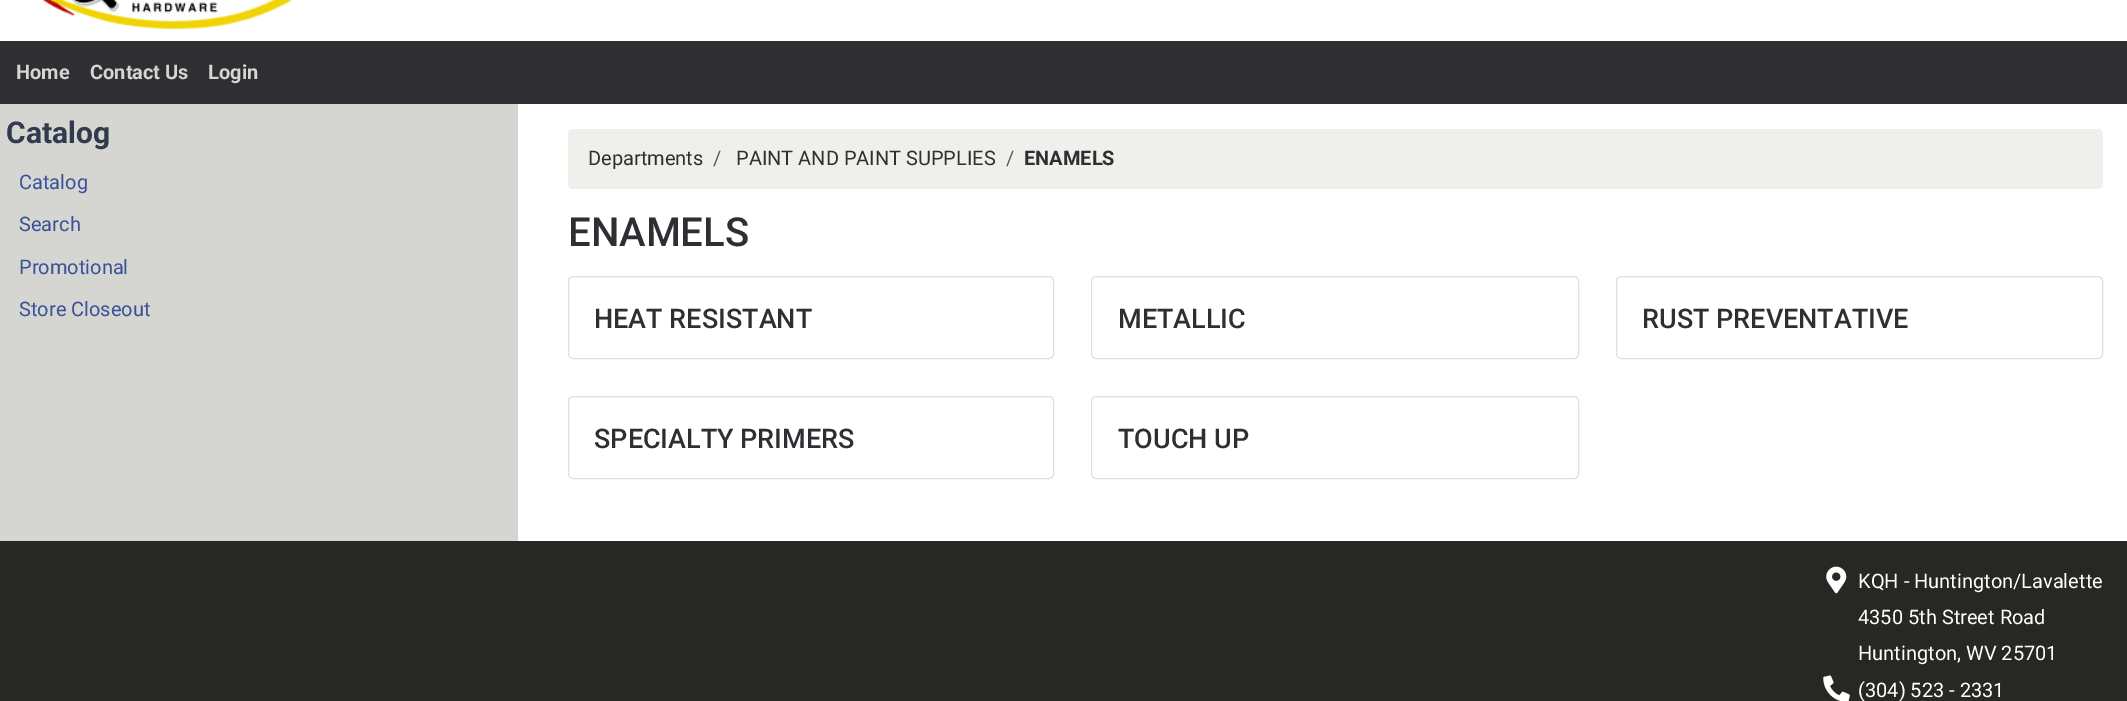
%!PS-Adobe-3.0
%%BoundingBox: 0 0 2127 701
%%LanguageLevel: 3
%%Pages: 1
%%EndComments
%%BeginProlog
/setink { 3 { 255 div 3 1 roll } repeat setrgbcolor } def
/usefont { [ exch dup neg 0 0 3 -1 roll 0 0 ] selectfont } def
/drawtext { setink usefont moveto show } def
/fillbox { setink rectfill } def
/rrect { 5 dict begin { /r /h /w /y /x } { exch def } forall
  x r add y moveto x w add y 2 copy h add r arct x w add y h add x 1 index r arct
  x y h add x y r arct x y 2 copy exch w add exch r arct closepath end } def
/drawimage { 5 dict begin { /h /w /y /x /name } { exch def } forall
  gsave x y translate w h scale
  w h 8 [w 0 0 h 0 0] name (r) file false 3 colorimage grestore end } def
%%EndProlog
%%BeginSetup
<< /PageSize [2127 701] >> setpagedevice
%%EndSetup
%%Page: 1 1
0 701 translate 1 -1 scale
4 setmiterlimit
0 0 2127 701 255 255 255 fillbox
(assets/img1.rgb) 42 0 252 29 drawimage
0 41 2127 63 47 46 51 fillbox
(Home) 16 79 /Roboto-Bold 20 213 214 210 drawtext
(Contact Us) 90 79 /Roboto-Bold 20 213 214 210 drawtext
(Login) 208 79 /Roboto-Bold 20 213 214 210 drawtext
0 104 518 437 213 214 210 fillbox
(Catalog) 6 143 /Roboto-Bold 30 50 58 77 drawtext
(Catalog) 19 189 /Roboto-Regular 20 58 81 153 drawtext
(Search) 19 231 /Roboto-Regular 20 58 81 153 drawtext
(Promotional) 19 274 /Roboto-Regular 20 58 81 153 drawtext
(Store Closeout) 19 316 /Roboto-Regular 20 58 81 153 drawtext
239 240 236 setink
568 129 1535 60 5 rrect fill
(Departments) 588 165 /Roboto-Regular 20 47 46 51 drawtext
(/) 713 165 /Roboto-Regular 20 91 93 85 drawtext
(PAINT AND PAINT SUPPLIES) 736 165 /Roboto-Regular 20 47 46 51 drawtext
(/) 1006 165 /Roboto-Regular 20 91 93 85 drawtext
(ENAMELS) 1024 165 /Roboto-Bold 20 47 46 51 drawtext
(ENAMELS) 568 246 /Roboto-Medium 40 47 46 51 drawtext
223 223 223 setink
568.5 276.5 485 82 4.5 rrect stroke
(HEAT RESISTANT) 594 328 /Roboto-Medium 27 47 46 51 drawtext
223 223 223 setink
1091.5 276.5 487 82 4.5 rrect stroke
(METALLIC) 1118 328 /Roboto-Medium 27 47 46 51 drawtext
223 223 223 setink
1616.5 276.5 486 82 4.5 rrect stroke
(RUST PREVENTATIVE) 1642 328 /Roboto-Medium 27 47 46 51 drawtext
223 223 223 setink
568.5 396.5 485 82 4.5 rrect stroke
(SPECIALTY PRIMERS) 594 448 /Roboto-Medium 27 47 46 51 drawtext
223 223 223 setink
1091.5 396.5 487 82 4.5 rrect stroke
(TOUCH UP) 1118 448 /Roboto-Medium 27 47 46 51 drawtext
0 541 2127 160 39 40 36 fillbox
(assets/img2.rgb) 1826 566 21 28 drawimage
(KQH - Huntington/Lavalette) 1858 588 /Roboto-Regular 20 255 255 255 drawtext
(4350 5th Street Road) 1858 624 /Roboto-Regular 20 255 255 255 drawtext
(Huntington, WV 25701) 1858 660 /Roboto-Regular 20 255 255 255 drawtext
(assets/img3.rgb) 1823 675 27 26 drawimage
(\(304\) 523 - 2331) 1858 697 /Roboto-Regular 20 255 255 255 drawtext
showpage
%%EOF
